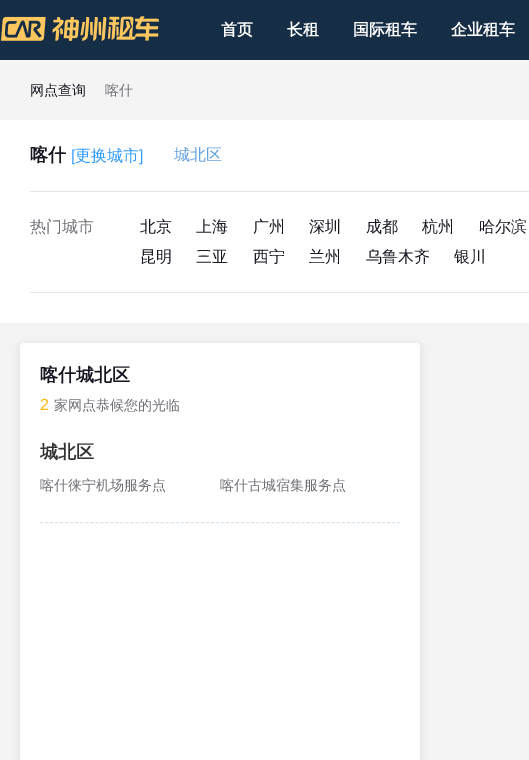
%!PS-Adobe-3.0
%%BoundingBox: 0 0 529 760
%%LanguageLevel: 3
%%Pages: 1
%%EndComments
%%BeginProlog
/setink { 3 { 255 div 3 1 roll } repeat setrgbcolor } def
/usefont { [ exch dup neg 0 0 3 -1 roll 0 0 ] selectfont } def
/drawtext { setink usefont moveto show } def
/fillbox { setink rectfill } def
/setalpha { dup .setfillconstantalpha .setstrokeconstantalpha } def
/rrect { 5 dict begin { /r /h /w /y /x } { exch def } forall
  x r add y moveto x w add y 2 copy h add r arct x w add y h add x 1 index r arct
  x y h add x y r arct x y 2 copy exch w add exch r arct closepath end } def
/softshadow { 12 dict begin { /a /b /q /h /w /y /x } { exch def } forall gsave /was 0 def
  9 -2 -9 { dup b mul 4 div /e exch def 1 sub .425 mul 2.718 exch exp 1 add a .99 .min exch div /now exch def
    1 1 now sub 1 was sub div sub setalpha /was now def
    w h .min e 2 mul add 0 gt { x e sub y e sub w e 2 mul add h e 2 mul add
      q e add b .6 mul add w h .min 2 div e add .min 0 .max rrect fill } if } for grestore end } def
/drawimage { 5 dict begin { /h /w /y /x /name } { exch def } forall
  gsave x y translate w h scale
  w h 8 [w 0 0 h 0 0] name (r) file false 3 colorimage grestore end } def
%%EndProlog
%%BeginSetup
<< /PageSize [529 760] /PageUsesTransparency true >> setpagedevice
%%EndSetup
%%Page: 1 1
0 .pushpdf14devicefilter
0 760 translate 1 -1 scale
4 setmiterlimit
0 0 529 760 244 244 245 fillbox
0 0 529 60 22 45 70 fillbox
(assets/img1.rgb) 1 16 158 25 drawimage
(首页) 221 35 /WenQuanYiZenHei-Bold 16 255 255 255 drawtext
(长租) 287 35 /WenQuanYiZenHei-Bold 16 255 255 255 drawtext
(国际租车) 353 35 /WenQuanYiZenHei-Bold 16 255 255 255 drawtext
(企业租车) 451 35 /WenQuanYiZenHei-Bold 16 255 255 255 drawtext
(网点查询) 30 95 /WenQuanYiZenHei-Medium 14 23 23 33 drawtext
(喀什) 105 95 /WenQuanYiZenHei-Medium 14 111 111 118 drawtext
0 120 529 203 255 255 255 fillbox
30 191 499 1 229 229 229 fillbox
(喀什) 30 161 /WenQuanYiZenHei-Bold 18 23 23 33 drawtext
([) 71 161 /LiberationSans-Regular 16 43 153 255 drawtext
(更换城市) 75 161 /WenQuanYiZenHei-Medium 16 43 153 255 drawtext
(]) 139 161 /LiberationSans-Regular 16 43 153 255 drawtext
(城北区) 174 160 /WenQuanYiZenHei-Medium 16 97 161 223 drawtext
30 292 499 1 229 229 229 fillbox
(热门城市) 30 232 /WenQuanYiZenHei-Medium 16 111 111 118 drawtext
(北京) 140 232 /WenQuanYiZenHei-Medium 16 23 23 33 drawtext
(上海) 196 232 /WenQuanYiZenHei-Medium 16 23 23 33 drawtext
(广州) 253 232 /WenQuanYiZenHei-Medium 16 23 23 33 drawtext
(深圳) 309 232 /WenQuanYiZenHei-Medium 16 23 23 33 drawtext
(成都) 366 232 /WenQuanYiZenHei-Medium 16 23 23 33 drawtext
(杭州) 422 232 /WenQuanYiZenHei-Medium 16 23 23 33 drawtext
(哈尔滨) 479 232 /WenQuanYiZenHei-Medium 16 23 23 33 drawtext
(昆明) 140 262 /WenQuanYiZenHei-Medium 16 23 23 33 drawtext
(三亚) 196 262 /WenQuanYiZenHei-Medium 16 23 23 33 drawtext
(西宁) 253 262 /WenQuanYiZenHei-Medium 16 23 23 33 drawtext
(兰州) 309 262 /WenQuanYiZenHei-Medium 16 23 23 33 drawtext
(乌鲁木齐) 366 262 /WenQuanYiZenHei-Medium 16 23 23 33 drawtext
(银川) 454 262 /WenQuanYiZenHei-Medium 16 23 23 33 drawtext
0 0 0 setink
20 345 400 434 4 5 0.1 softshadow
255 255 255 setink
20 343 400 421 4 rrect fill
(喀什城北区) 40 381 /WenQuanYiZenHei-Bold 18 23 23 33 drawtext
(2) 40 410 /LiberationSans-Regular 16 253 184 17 drawtext
(家网点恭候您的光临) 54 410 /WenQuanYiZenHei-Medium 14 111 111 118 drawtext
(城北区) 40 458 /WenQuanYiZenHei-Bold 18 51 51 51 drawtext
(喀什徕宁机场服务点) 40 490 /WenQuanYiZenHei-Medium 14 111 111 118 drawtext
(喀什古城宿集服务点) 220 490 /WenQuanYiZenHei-Medium 14 111 111 118 drawtext
219 228 235 setink
[3 2.03] 0 setdash
40 522.5 moveto 400 522.5 lineto stroke
.poppdf14devicefilter showpage
%%EOF
